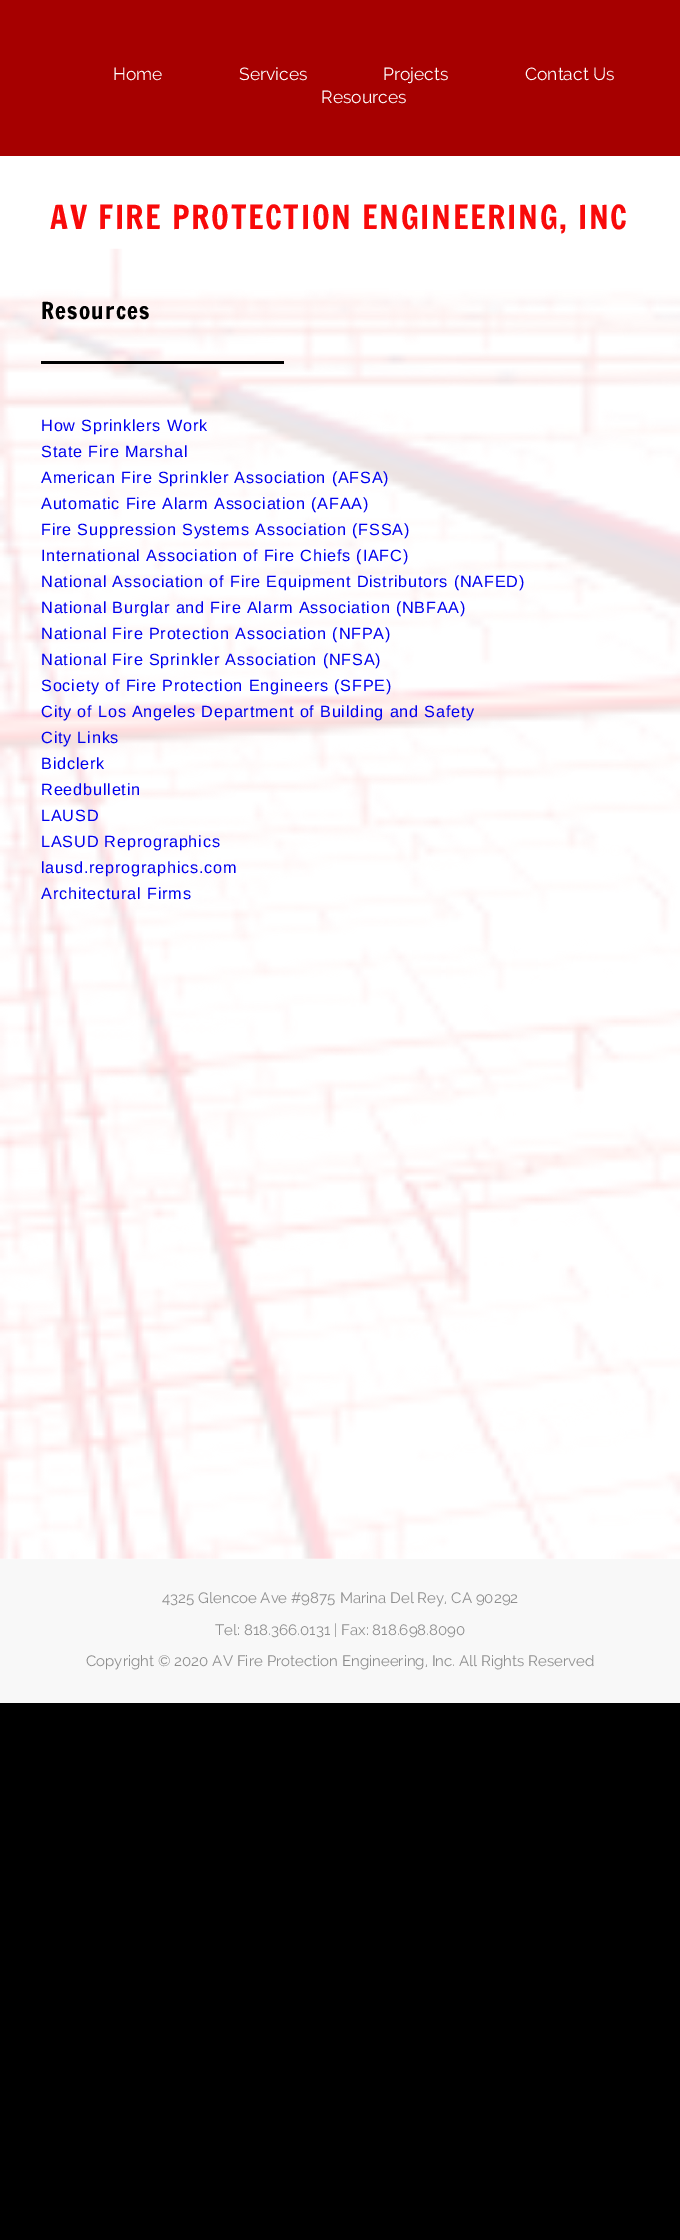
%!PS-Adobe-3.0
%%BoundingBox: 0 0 680 2240
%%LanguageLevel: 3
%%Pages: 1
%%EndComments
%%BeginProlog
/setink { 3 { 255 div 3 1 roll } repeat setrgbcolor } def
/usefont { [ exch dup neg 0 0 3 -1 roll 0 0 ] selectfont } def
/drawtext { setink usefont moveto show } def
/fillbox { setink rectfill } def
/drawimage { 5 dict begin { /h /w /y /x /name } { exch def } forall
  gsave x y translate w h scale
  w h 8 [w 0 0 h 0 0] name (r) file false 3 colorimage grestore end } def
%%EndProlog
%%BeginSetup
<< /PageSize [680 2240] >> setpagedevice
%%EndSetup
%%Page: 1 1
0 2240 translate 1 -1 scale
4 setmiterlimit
0 0 680 2240 0 0 0 fillbox
0 156 680 1403 255 255 255 fillbox
0 0 680 156 166 0 0 fillbox
(Home) 113 80 /Raleway-Regular 17.5 255 255 255 drawtext
(Services) 239 80 /Raleway-Regular 17.5 255 255 255 drawtext
(Projects) 383 80 /Raleway-Regular 17.5 255 255 255 drawtext
(Contact Us) 525 80 /Raleway-Regular 17.5 255 255 255 drawtext
(Resources) 321 103 /Raleway-Regular 17.5 255 255 255 drawtext
/FrancoisOne-Regular 32.5 usefont
248 10 10 setink
50 229 moveto 1.6 0 (AV FIRE PROTECTION ENGINEERING, INC) ashow
(assets/img1.rgb) 0 248 680 1311 drawimage
/FrancoisOne-Regular 23 usefont
0 0 0 setink
41 319 moveto 1.25 0 (Resources) ashow
41 361 243 3 0 0 0 fillbox
/LiberationSans-Regular 16.25 usefont
0 0 238 setink
41 431 moveto 0.8 0 (How Sprinklers Work) ashow
41 457 moveto 0.8 0 (State Fire Marshal) ashow
41 483 moveto 0.8 0 (American Fire Sprinkler Association \(AFSA\)) ashow
41 509 moveto 0.8 0 (Automatic Fire Alarm Association \(AFAA\)) ashow
41 535 moveto 0.8 0 (Fire Suppression Systems Association \(FSSA\)) ashow
41 561 moveto 0.8 0 (International Association of Fire Chiefs \(IAFC\)) ashow
41 587 moveto 0.8 0 (National Association of Fire Equipment Distributors \(NAFED\)) ashow
41 613 moveto 0.8 0 (National Burglar and Fire Alarm Association \(NBFAA\)) ashow
41 639 moveto 0.8 0 (National Fire Protection Association \(NFPA\)) ashow
41 665 moveto 0.8 0 (National Fire Sprinkler Association \(NFSA\)) ashow
41 691 moveto 0.8 0 (Society of Fire Protection Engineers \(SFPE\)) ashow
41 717 moveto 0.8 0 (City of Los Angeles Department of Building and Safety) ashow
41 743 moveto 0.8 0 (City Links) ashow
41 769 moveto 0.8 0 (Bidclerk) ashow
41 795 moveto 0.8 0 (Reedbulletin) ashow
41 821 moveto 0.8 0 (LAUSD) ashow
41 847 moveto 0.8 0 (LASUD Reprographics) ashow
41 873 moveto 0.8 0 (lausd.reprographics.com) ashow
41 899 moveto 0.8 0 (Architectural Firms) ashow
0 1559 680 144 248 248 248 fillbox
(4325 Glencoe Ave #9875 Marina Del Rey, CA 90292) 162 1603 /Raleway-Regular 15 142 142 142 drawtext
(Tel: 818.366.0131 | Fax: 818.698.8090) 215 1635 /Raleway-Regular 15 142 142 142 drawtext
(Copyright © 2020 AV Fire Protection Engineering, Inc. All Rights Reserved) 86 1666 /Raleway-Regular 15 142 142 142 drawtext
showpage
%%EOF
